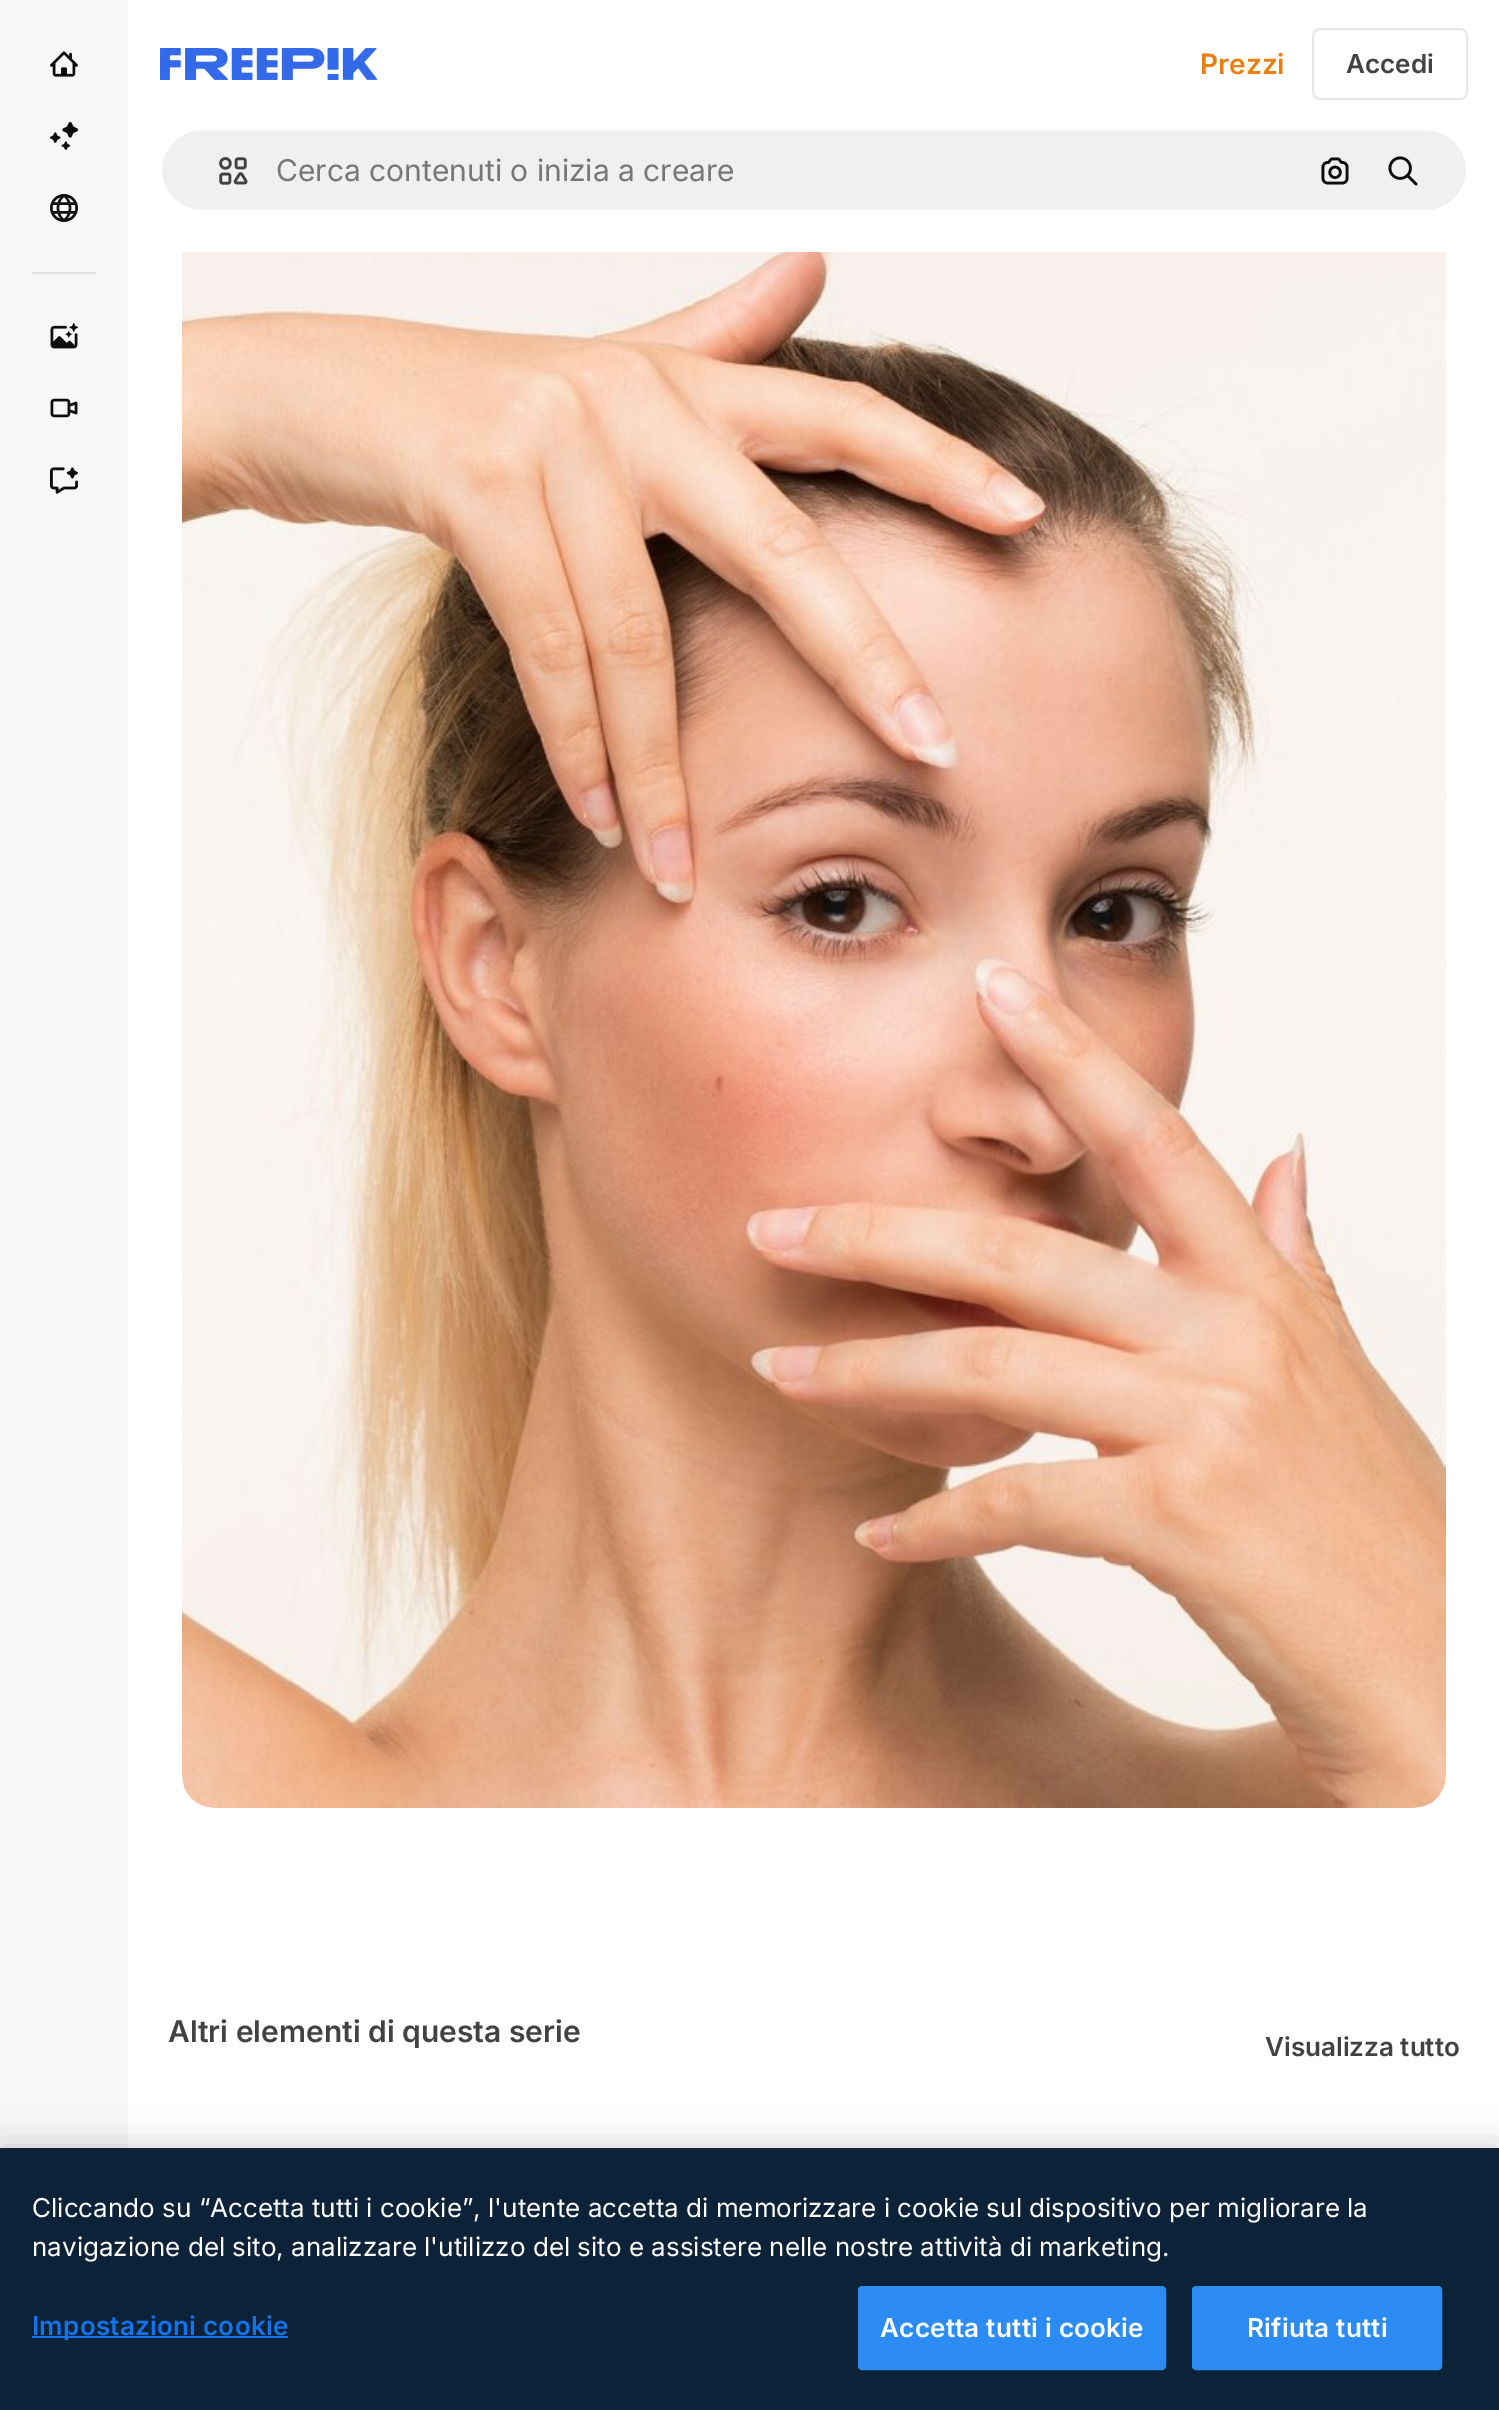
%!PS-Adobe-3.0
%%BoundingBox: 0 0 1499 2410
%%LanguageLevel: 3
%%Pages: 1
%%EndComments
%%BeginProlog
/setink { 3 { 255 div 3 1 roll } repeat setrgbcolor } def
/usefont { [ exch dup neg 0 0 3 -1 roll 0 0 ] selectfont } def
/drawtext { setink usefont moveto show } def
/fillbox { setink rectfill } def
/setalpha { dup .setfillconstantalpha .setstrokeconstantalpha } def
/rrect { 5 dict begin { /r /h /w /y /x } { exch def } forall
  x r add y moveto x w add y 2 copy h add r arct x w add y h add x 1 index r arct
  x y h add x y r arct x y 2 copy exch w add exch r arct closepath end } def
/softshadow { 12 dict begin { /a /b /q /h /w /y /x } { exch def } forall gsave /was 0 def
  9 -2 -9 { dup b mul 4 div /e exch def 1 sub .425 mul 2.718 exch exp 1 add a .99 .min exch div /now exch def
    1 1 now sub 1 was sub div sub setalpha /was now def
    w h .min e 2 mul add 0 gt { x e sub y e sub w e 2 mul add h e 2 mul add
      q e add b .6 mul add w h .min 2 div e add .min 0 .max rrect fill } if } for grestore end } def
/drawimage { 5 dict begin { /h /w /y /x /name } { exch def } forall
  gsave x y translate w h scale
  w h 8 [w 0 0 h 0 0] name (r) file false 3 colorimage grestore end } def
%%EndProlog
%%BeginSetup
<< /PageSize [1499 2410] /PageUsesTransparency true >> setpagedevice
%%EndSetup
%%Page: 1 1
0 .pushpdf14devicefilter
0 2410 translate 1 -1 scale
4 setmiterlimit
0 0 1499 2410 255 255 255 fillbox
0 0 128 2148 247 247 247 fillbox
(assets/img1.rgb) 50 51 28 26 drawimage
(assets/img2.rgb) 50 122 28 28 drawimage
(assets/img3.rgb) 50 194 28 28 drawimage
32 272 64 2 224 224 224 fillbox
(assets/img4.rgb) 50 323 28 26 drawimage
(assets/img5.rgb) 50 398 28 20 drawimage
(assets/img6.rgb) 50 467 28 27 drawimage
(assets/img7.rgb) 160 48 218 32 drawimage
(Prezzi) 1200 74 /Inter-SemiBold 28 234 126 17 drawtext
231 231 231 setink
2 setlinewidth
1313 29 154 70 7 rrect stroke
(Accedi) 1346 73 /Inter-SemiBold 26 66 66 66 drawtext
240 240 240 setink
161 129 1306 82 41 rrect gsave fill grestore
255 255 255 setink
stroke
(assets/img8.rgb) 219 157 29 28 drawimage
(Cerca contenuti o inizia a creare) 276 181 /Inter-Regular 30 119 119 119 drawtext
(assets/img9.rgb) 1321 157 28 28 drawimage
(assets/img10.rgb) 1388 156 30 30 drawimage
(assets/img11.rgb) 182 252 1264 1556 drawimage
(Altri elementi di questa serie) 168 2042 /Inter-SemiBold 30 66 66 66 drawtext
(Visualizza tutto) 1265 2056 /Inter-SemiBold 26 66 66 66 drawtext
0 0 0 setink
0 2148 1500 262 0 18 0.2 softshadow
0 2148 1499 262 11 34 57 fillbox
(Cliccando su “Accetta tutti i cookie”, l'utente accetta di memorizzare i cookie sul dispositivo per migliorare la) 32 2217 /Inter-Regular 26.02 255 255 255 drawtext
(navigazione del sito, analizzare l'utilizzo del sito e assistere nelle nostre attività di marketing.) 32 2256 /Inter-Regular 26.02 255 255 255 drawtext
32 2336 256 2 18 115 235 fillbox
/Inter-SemiBold 26.02 usefont
32 2335 moveto 0.25 0 (Impostazioni cookie) ashow
44 140 244 setink
859 2287 306 82 3 rrect gsave fill grestore
stroke
255 255 255 setink
880 2337 moveto 0.25 0 (Accetta tutti i cookie) ashow
44 140 244 setink
1193 2287 248 82 3 rrect gsave fill grestore
stroke
255 255 255 setink
1247 2337 moveto 0.25 0 (Rifiuta tutti) ashow
.poppdf14devicefilter showpage
%%EOF
